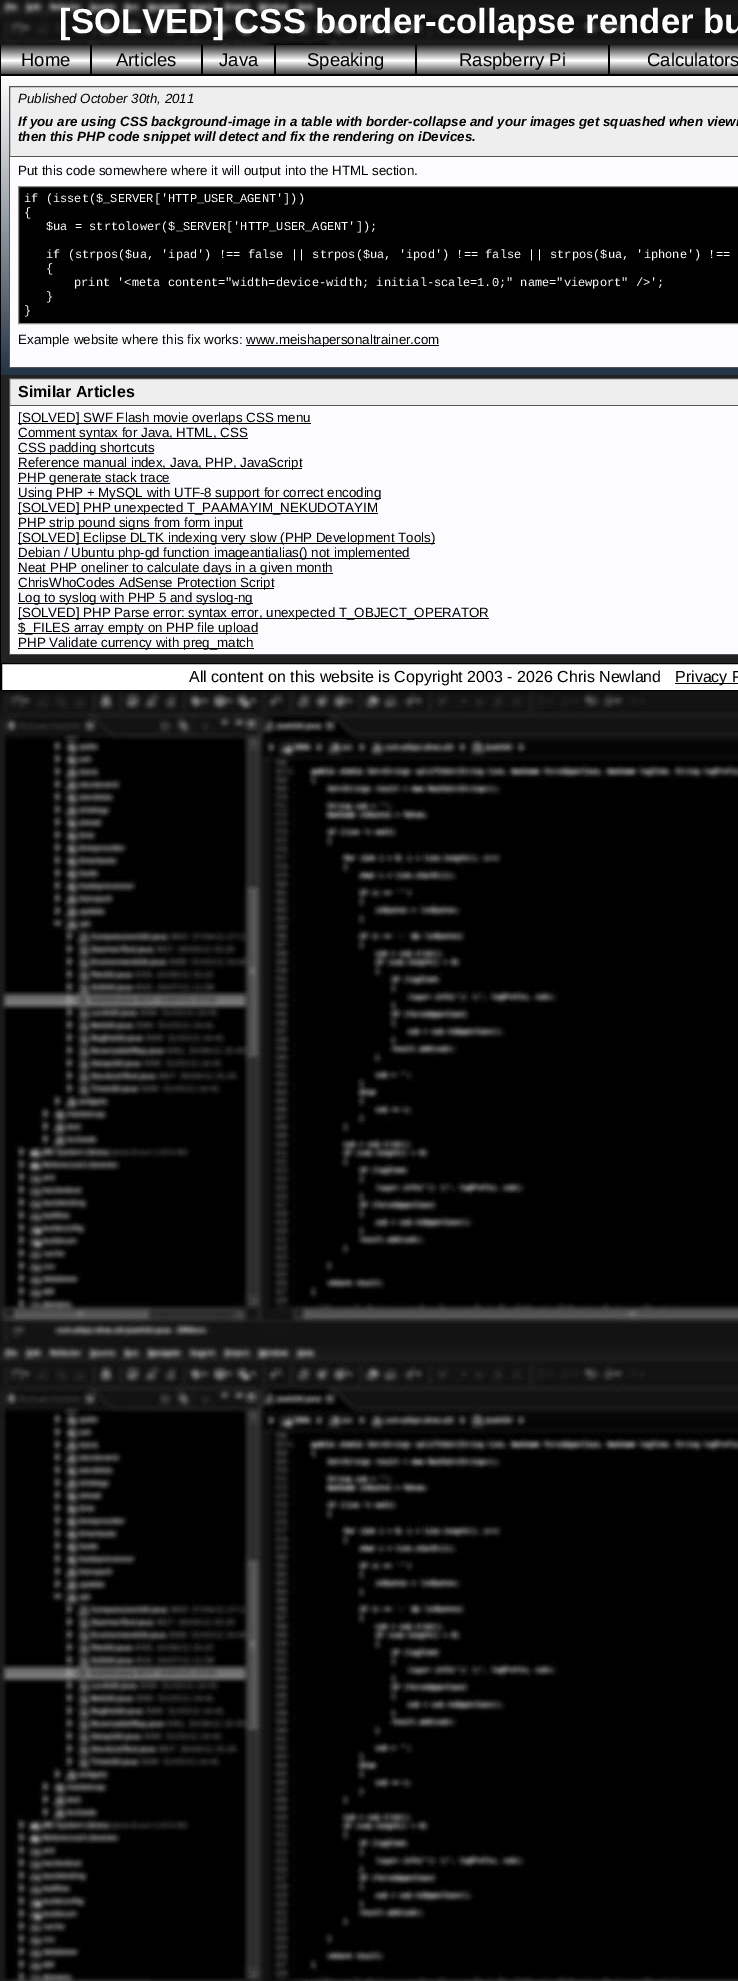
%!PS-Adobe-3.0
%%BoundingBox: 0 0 738 1981
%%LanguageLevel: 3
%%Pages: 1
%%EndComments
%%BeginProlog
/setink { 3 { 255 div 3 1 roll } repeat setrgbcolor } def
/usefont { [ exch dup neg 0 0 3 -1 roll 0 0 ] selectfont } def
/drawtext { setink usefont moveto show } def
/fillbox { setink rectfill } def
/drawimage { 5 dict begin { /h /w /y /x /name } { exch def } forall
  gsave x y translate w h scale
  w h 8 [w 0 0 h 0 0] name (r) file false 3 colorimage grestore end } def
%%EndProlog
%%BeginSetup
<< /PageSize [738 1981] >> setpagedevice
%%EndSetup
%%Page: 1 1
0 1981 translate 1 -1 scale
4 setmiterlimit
0 0 738 1981 255 255 255 fillbox
(assets/img1.rgb) 0 0 738 1981 drawimage
([SOLVED] CSS border-collapse render bu) 59 33 /LiberationSans-Bold 34.7 255 255 255 drawtext
1 375 737 288 34 34 34 fillbox
(assets/img2.rgb) 1 76 737 299 drawimage
0 45 1 646 0 0 0 fillbox
1 74 737 2 0 0 0 fillbox
(assets/img3.rgb) 1 45 89 29 drawimage
90 45 2 29 0 0 0 fillbox
(Home) 21 66 /LiberationSans-Regular 18.5 0 0 0 drawtext
(assets/img4.rgb) 92 45 109 29 drawimage
201 45 2 29 0 0 0 fillbox
(Articles) 116 66 /LiberationSans-Regular 18.5 0 0 0 drawtext
(assets/img5.rgb) 203 45 71 29 drawimage
274 45 2 29 0 0 0 fillbox
(Java) 219 66 /LiberationSans-Regular 18.5 0 0 0 drawtext
(assets/img6.rgb) 276 45 139 29 drawimage
415 45 2 29 0 0 0 fillbox
(Speaking) 307 66 /LiberationSans-Regular 18.5 0 0 0 drawtext
(assets/img7.rgb) 417 45 191 29 drawimage
608 45 2 29 0 0 0 fillbox
(Raspberry Pi) 459 66 /LiberationSans-Regular 18.5 0 0 0 drawtext
(assets/img8.rgb) 610 45 128 29 drawimage
(Calculators) 647 66 /LiberationSans-Regular 18.5 0 0 0 drawtext
238 238 238 setink
9.5 86.5 moveto 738.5 86.5 lineto 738.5 156.5 lineto 9.5 156.5 lineto closepath gsave fill grestore
85 85 85 setink
stroke
(Published October 30th, 2011) 18 103 /LiberationSans-Italic 13.33 0 0 0 drawtext
(If you are using CSS background-image in a table with border-collapse and your images get squashed when viewi) 18 126 /LiberationSans-BoldItalic 13.33 0 0 0 drawtext
(then this PHP code snippet will detect and fix the rendering on iDevices.) 18 141 /LiberationSans-BoldItalic 13.33 0 0 0 drawtext
10 157 728 210 252 252 255 fillbox
9 367 729 1 85 85 85 fillbox
9 157 1 211 85 85 85 fillbox
(Put this code somewhere where it will output into the HTML section.) 18 175 /LiberationSans-Regular 13.33 0 0 0 drawtext
18.5 186.5 moveto 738.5 186.5 lineto 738.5 323.5 lineto 18.5 323.5 lineto closepath gsave fill grestore
136 136 136 setink
stroke
(if \(isset\($_SERVER['HTTP_USER_AGENT']\)\)) 24 202 /LiberationMono-Regular 12 255 255 255 drawtext
({) 24 216 /LiberationMono-Regular 12 255 255 255 drawtext
($ua = strtolower\($_SERVER['HTTP_USER_AGENT']\);) 46 230 /LiberationMono-Regular 12 255 255 255 drawtext
(if \(strpos\($ua, 'ipad'\) !== false || strpos\($ua, 'ipod'\) !== false || strpos\($ua, 'iphone'\) !==) 46 258 /LiberationMono-Regular 12 255 255 255 drawtext
({) 46 272 /LiberationMono-Regular 12 255 255 255 drawtext
(print '<meta content="width=device-width; initial-scale=1.0;" name="viewport" />';) 74 286 /LiberationMono-Regular 12 255 255 255 drawtext
(}) 46 300 /LiberationMono-Regular 12 255 255 255 drawtext
(}) 24 314 /LiberationMono-Regular 12 255 255 255 drawtext
(Example website where this fix works:) 18 344 /LiberationSans-Regular 13.33 0 0 0 drawtext
246 345 193 1 0 0 0 fillbox
(www.meishapersonaltrainer.com) 246 344 /LiberationSans-Regular 13.33 0 0 0 drawtext
238 238 238 setink
9.5 378.5 moveto 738.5 378.5 lineto 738.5 405.5 lineto 9.5 405.5 lineto closepath gsave fill grestore
85 85 85 setink
stroke
(Similar Articles) 18 397 /LiberationSans-Bold 16 0 0 0 drawtext
10 406 728 248 252 252 255 fillbox
9 654 729 1 85 85 85 fillbox
9 406 1 249 85 85 85 fillbox
18 423 293 1 0 0 0 fillbox
([SOLVED] SWF Flash movie overlaps CSS menu) 18 422 /LiberationSans-Regular 13.33 0 0 0 drawtext
18 438 230 1 0 0 0 fillbox
(Comment syntax for Java, HTML, CSS) 18 437 /LiberationSans-Regular 13.33 0 0 0 drawtext
18 453 136 1 0 0 0 fillbox
(CSS padding shortcuts) 18 452 /LiberationSans-Regular 13.33 0 0 0 drawtext
18 468 284 1 0 0 0 fillbox
(Reference manual index, Java, PHP, JavaScript) 18 467 /LiberationSans-Regular 13.33 0 0 0 drawtext
18 483 152 1 0 0 0 fillbox
(PHP generate stack trace) 18 482 /LiberationSans-Regular 13.33 0 0 0 drawtext
18 498 363 1 0 0 0 fillbox
(Using PHP + MySQL with UTF-8 support for correct encoding) 18 497 /LiberationSans-Regular 13.33 0 0 0 drawtext
18 513 360 1 0 0 0 fillbox
([SOLVED] PHP unexpected T_PAAMAYIM_NEKUDOTAYIM) 18 512 /LiberationSans-Regular 13.33 0 0 0 drawtext
18 528 225 1 0 0 0 fillbox
(PHP strip pound signs from form input) 18 527 /LiberationSans-Regular 13.33 0 0 0 drawtext
18 543 417 1 0 0 0 fillbox
([SOLVED] Eclipse DLTK indexing very slow \(PHP Development Tools\)) 18 542 /LiberationSans-Regular 13.33 0 0 0 drawtext
18 558 392 1 0 0 0 fillbox
(Debian / Ubuntu php-gd function imageantialias\(\) not implemented) 18 557 /LiberationSans-Regular 13.33 0 0 0 drawtext
18 573 315 1 0 0 0 fillbox
(Neat PHP oneliner to calculate days in a given month) 18 572 /LiberationSans-Regular 13.33 0 0 0 drawtext
18 588 256 1 0 0 0 fillbox
(ChrisWhoCodes AdSense Protection Script) 18 587 /LiberationSans-Regular 13.33 0 0 0 drawtext
18 603 235 1 0 0 0 fillbox
(Log to syslog with PHP 5 and syslog-ng) 18 602 /LiberationSans-Regular 13.33 0 0 0 drawtext
18 618 471 1 0 0 0 fillbox
([SOLVED] PHP Parse error: syntax error, unexpected T_OBJECT_OPERATOR) 18 617 /LiberationSans-Regular 13.33 0 0 0 drawtext
18 633 240 1 0 0 0 fillbox
($_FILES array empty on PHP file upload) 18 632 /LiberationSans-Regular 13.33 0 0 0 drawtext
18 648 236 1 0 0 0 fillbox
(PHP Validate currency with preg_match) 18 647 /LiberationSans-Regular 13.33 0 0 0 drawtext
255 255 255 setink
1.5 663.5 moveto 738.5 663.5 lineto 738.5 690.5 lineto 1.5 690.5 lineto closepath gsave fill grestore
0 0 0 setink
stroke
(All content on this website is Copyright 2003 - 2026 Chris Newland) 189 682 /LiberationSans-Regular 16 0 0 0 drawtext
675 683 63 1 0 0 0 fillbox
(Privacy P) 675 682 /LiberationSans-Regular 16 0 0 0 drawtext
showpage
%%EOF
